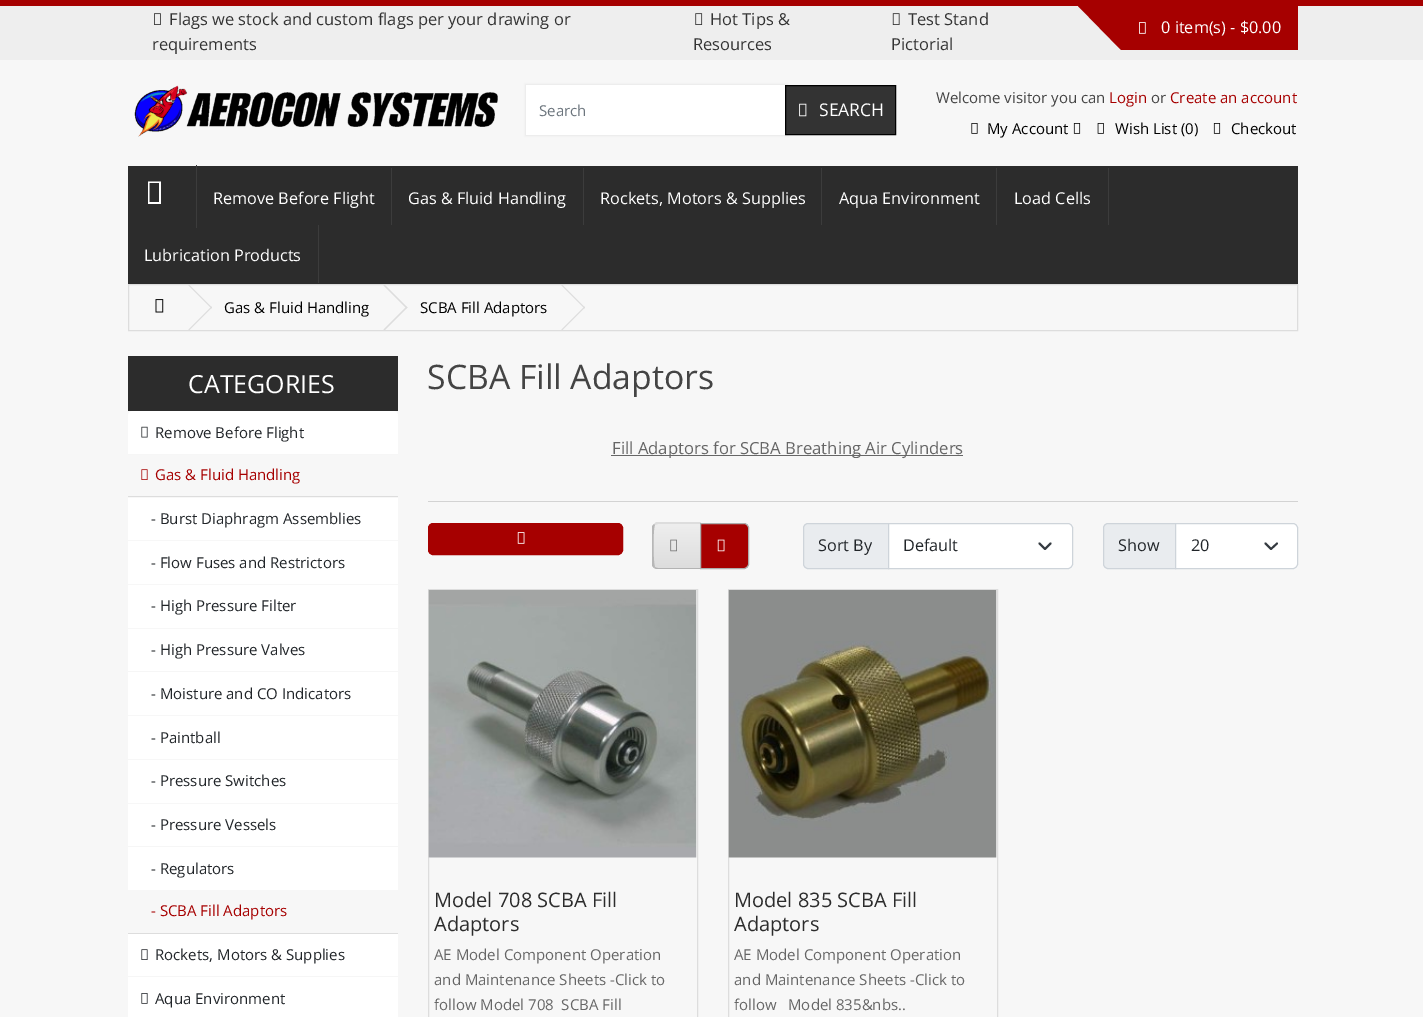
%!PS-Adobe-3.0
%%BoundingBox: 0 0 1423 1017
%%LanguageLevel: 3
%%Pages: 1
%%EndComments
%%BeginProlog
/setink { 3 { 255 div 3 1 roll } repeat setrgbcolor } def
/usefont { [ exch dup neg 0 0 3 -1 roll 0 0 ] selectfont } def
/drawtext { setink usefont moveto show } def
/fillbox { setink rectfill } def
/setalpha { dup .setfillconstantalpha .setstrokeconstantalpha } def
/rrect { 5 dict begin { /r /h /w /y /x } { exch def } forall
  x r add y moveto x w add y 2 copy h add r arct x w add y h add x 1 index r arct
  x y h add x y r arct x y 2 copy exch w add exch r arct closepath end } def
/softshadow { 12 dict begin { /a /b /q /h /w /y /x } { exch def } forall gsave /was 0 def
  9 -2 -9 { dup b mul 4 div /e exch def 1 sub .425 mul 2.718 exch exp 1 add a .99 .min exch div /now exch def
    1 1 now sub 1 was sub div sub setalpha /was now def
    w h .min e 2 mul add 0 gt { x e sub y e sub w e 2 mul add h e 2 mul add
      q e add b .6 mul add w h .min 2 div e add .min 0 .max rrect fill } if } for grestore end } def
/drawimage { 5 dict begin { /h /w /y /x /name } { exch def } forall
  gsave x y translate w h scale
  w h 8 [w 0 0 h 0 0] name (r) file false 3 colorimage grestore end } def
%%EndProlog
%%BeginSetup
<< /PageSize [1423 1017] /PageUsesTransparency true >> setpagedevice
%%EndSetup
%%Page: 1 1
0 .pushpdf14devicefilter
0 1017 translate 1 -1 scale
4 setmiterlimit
0 0 1423 1017 247 247 247 fillbox
0 6 1423 54 238 238 238 fillbox
0 0 1423 6 166 0 0 fillbox
(assets/img1.rgb) 154 13 7 12 drawimage
(Flags we stock and custom flags per your drawing or) 169 25 /OpenSans-Regular 16.5 51 51 51 drawtext
(requirements) 152 50 /OpenSans-Regular 16.5 51 51 51 drawtext
(assets/img2.rgb) 695 13 8 12 drawimage
(Hot Tips &) 710 25 /OpenSans-Regular 16.5 51 51 51 drawtext
(Resources) 693 50 /OpenSans-Regular 16.5 51 51 51 drawtext
(assets/img3.rgb) 892 13 8 12 drawimage
(Test Stand) 908 25 /OpenSans-Regular 16.5 51 51 51 drawtext
(Pictorial) 891 50 /OpenSans-Regular 16.5 51 51 51 drawtext
166 0 0 setink
1078 6 moveto 1121 6 lineto 1121 50 lineto closepath fill
1121 6 177 44 166 0 0 fillbox
(assets/img4.rgb) 1139 22 7 12 drawimage
(0 item\(s\) - $0.00) 1161 33 /OpenSans-Regular 16.25 255 255 255 drawtext
(assets/img5.rgb) 134 85 364 52 drawimage
0 0 0 setink
525 84 263 52 0 1 0.05 softshadow
526 85 259 50 255 255 255 fillbox
(Search) 539 116 /OpenSans-Regular 15 108 117 125 drawtext
51 51 51 setink
785.5 85.5 moveto 895.5 85.5 lineto 895.5 134.5 lineto 785.5 134.5 lineto closepath gsave fill grestore
0 0 0 setink
stroke
(assets/img6.rgb) 799 103 8 14 drawimage
(SEARCH) 819 116 /OpenSans-Regular 17.5 255 255 255 drawtext
(Welcome visitor you can) 936 103 /OpenSans-Regular 15 68 68 68 drawtext
(Login) 1109 103 /OpenSans-Regular 15 166 0 0 drawtext
(or) 1151 103 /OpenSans-Regular 15 68 68 68 drawtext
(Create an account) 1170 103 /OpenSans-Regular 15 166 0 0 drawtext
(assets/img7.rgb) 971 123 7 11 drawimage
(My Account) 987 134 /OpenSans-Regular 15 0 0 0 drawtext
(assets/img8.rgb) 1073 123 8 11 drawimage
(assets/img9.rgb) 1097 123 7 11 drawimage
(Wish List \(0\)) 1115 134 /OpenSans-Regular 15 0 0 0 drawtext
(assets/img8.rgb) 1213 123 8 11 drawimage
(Checkout) 1231 134 /OpenSans-Regular 15 0 0 0 drawtext
128 166 1170 118 44 44 44 fillbox
196 165 1 63 60 60 60 fillbox
255 255 255 setink
148 204 moveto 148 181.5 lineto 161 181.5 lineto 161 204 lineto closepath 149.5 202 moveto 159 202 lineto 159 183 lineto 149.5 183 lineto closepath fill
391 168 1 57 60 60 60 fillbox
(Remove Before Flight) 213 204 /OpenSans-Regular 16.25 255 255 255 drawtext
583 168 1 57 60 60 60 fillbox
(Gas & Fluid Handling) 408 204 /OpenSans-Regular 16.25 255 255 255 drawtext
821 168 1 57 60 60 60 fillbox
(Rockets, Motors & Supplies) 600 204 /OpenSans-Regular 16.25 255 255 255 drawtext
996 168 1 57 60 60 60 fillbox
(Aqua Environment) 839 204 /OpenSans-Regular 16.25 255 255 255 drawtext
1108 168 1 57 60 60 60 fillbox
(Load Cells) 1014 204 /OpenSans-Regular 16.25 255 255 255 drawtext
318 225 1 58 60 60 60 fillbox
(Lubrication Products) 144 261 /OpenSans-Regular 16.25 255 255 255 drawtext
221 221 221 setink
128.5 284.5 1169 46 rectstroke
(assets/img10.rgb) 155 299 9 14 drawimage
188.5 285.5 moveto 189 284.5 lineto 212 307.5 lineto 211.5 308.5 lineto closepath fill
188.5 329.5 moveto 211.5 306.5 lineto 212 307.5 lineto 189 330.5 lineto closepath fill
(Gas & Fluid Handling) 224 313 /OpenSans-Regular 15 0 0 0 drawtext
221 221 221 setink
383.5 285.5 moveto 384.5 284.5 lineto 407.5 307.5 lineto 406.5 308.5 lineto closepath fill
383.5 329.5 moveto 406.5 306.5 lineto 407.5 307.5 lineto 384.5 330.5 lineto closepath fill
(SCBA Fill Adaptors) 420 313 /OpenSans-Regular 15 0 0 0 drawtext
221 221 221 setink
561.5 285.5 moveto 562 284.5 lineto 585 307.5 lineto 584.5 308.5 lineto closepath fill
561.5 329.5 moveto 584.5 306.5 lineto 585 307.5 lineto 562 330.5 lineto closepath fill
128 356 270 55 44 44 44 fillbox
(CATEGORIES) 188 393 /OpenSans-Regular 25 255 255 255 drawtext
133 411 moveto 393 411 lineto 396 411 398 413 398 416 curveto 398 455 lineto 128 455 lineto 128 416 lineto 128 413 130 411 133 411 curveto closepath fill
128 454 270 1 246 246 246 fillbox
(assets/img11.rgb) 141 426 7 12 drawimage
(Remove Before Flight) 155 438 /OpenSans-Regular 15 33 37 41 drawtext
128 496 270 1 221 221 221 fillbox
(assets/img12.rgb) 141 469 7 11 drawimage
(Gas & Fluid Handling) 155 480 /OpenSans-Regular 15 166 0 0 drawtext
128 498 270 42 255 255 255 fillbox
(- Burst Diaphragm Assemblies) 151 524 /OpenSans-Regular 15 33 37 41 drawtext
128 541 270 43 255 255 255 fillbox
(- Flow Fuses and Restrictors) 151 568 /OpenSans-Regular 15 33 37 41 drawtext
128 585 270 43 255 255 255 fillbox
(- High Pressure Filter) 151 611 /OpenSans-Regular 15 33 37 41 drawtext
128 629 270 86 255 255 255 fillbox
128 671 270 1 246 246 246 fillbox
(- High Pressure Valves) 151 655 /OpenSans-Regular 15 33 37 41 drawtext
(- Moisture and CO Indicators) 151 699 /OpenSans-Regular 15 33 37 41 drawtext
128 716 270 43 255 255 255 fillbox
(- Paintball) 151 743 /OpenSans-Regular 15 33 37 41 drawtext
128 760 270 43 255 255 255 fillbox
(- Pressure Switches) 151 786 /OpenSans-Regular 15 33 37 41 drawtext
128 804 270 86 255 255 255 fillbox
128 846 270 1 246 246 246 fillbox
(- Pressure Vessels) 151 830 /OpenSans-Regular 15 33 37 41 drawtext
(- Regulators) 151 874 /OpenSans-Regular 15 33 37 41 drawtext
128 933 270 1 221 221 221 fillbox
(- SCBA Fill Adaptors) 151 916 /OpenSans-Regular 15 166 0 0 drawtext
128 934 270 83 255 255 255 fillbox
128 976 270 1 246 246 246 fillbox
(assets/img13.rgb) 141 949 7 11 drawimage
(Rockets, Motors & Supplies) 155 960 /OpenSans-Regular 15 33 37 41 drawtext
(assets/img14.rgb) 141 993 7 11 drawimage
(Aqua Environment) 155 1004 /OpenSans-Regular 15 33 37 41 drawtext
(SCBA Fill Adaptors) 427 389 /OpenSans-Regular 33.75 68 68 68 drawtext
611 455 352 1 102 102 102 fillbox
(Fill Adaptors for SCBA Breathing Air Cylinders) 612 454 /OpenSans-Regular 16.7 102 102 102 drawtext
428 501 870 1 211 211 211 fillbox
166 0 0 setink
428.5 523.5 194 31 4.5 rrect gsave fill grestore
stroke
(assets/img15.rgb) 517 532 8 12 drawimage
gsave
658 523 moveto 701 523 lineto 701 569 lineto 658 569 lineto 655 569 653 567 653 564 curveto 653 528 lineto 653 525 655 523 658 523 curveto closepath clip newpath
gsave 653 524 moveto 700 524 lineto 700 568 lineto 653 568 lineto closepath clip newpath
<< /ShadingType 2 /ColorSpace /DeviceRGB /Coords [677 524 677 568] /Extend [true true] /Function << /FunctionType 2 /Domain [0 1] /C0 [0.933 0.933 0.933] /C1 [0.867 0.867 0.867] /N 1 >> >> shfill grestore
grestore
221 221 221 setink
658 524 moveto 655 525 lineto 654 524 lineto 656 522 lineto 701 522 lineto 700 524 lineto closepath fill
179 179 179 setink
656 569 moveto 654 568 lineto 655 567 lineto 655 567 656 568 658 568 curveto 700 568 lineto 701 569 lineto closepath fill
183 183 183 setink
652 526 moveto 654 524 lineto 655 525 lineto 653 526 653 564 655 567 curveto 654 568 lineto 652 566 lineto closepath fill
(assets/img16.rgb) 670 539 7 13 drawimage
166 0 0 setink
700.5 523.5 moveto 744 523.5 lineto 746.5 523.5 748.5 525.5 748.5 528 curveto 748.5 564 lineto 748.5 566.5 746.5 568.5 744 568.5 curveto 700.5 568.5 lineto closepath gsave fill grestore
173 173 173 setink
stroke
(assets/img17.rgb) 717 539 8 13 drawimage
233 236 239 setink
808 523.5 moveto 888.5 523.5 lineto 888.5 568.5 lineto 808 568.5 lineto 805.5 568.5 803.5 566.5 803.5 564 curveto 803.5 528 lineto 803.5 525.5 805.5 523.5 808 523.5 curveto closepath gsave fill grestore
206 212 218 setink
stroke
(Sort By) 818 551 /OpenSans-Regular 16.25 33 37 41 drawtext
255 255 255 setink
888 523 moveto 1068 523 lineto 1071 523 1073 525 1073 528 curveto 1073 564 lineto 1073 567 1071 569 1068 569 curveto 888 569 lineto closepath fill
52 58 64 setink
1.9 setlinewidth
1 setlinecap
1 setlinejoin
1039.5 543.5 moveto 1045 549 lineto 1050.5 543.5 lineto stroke
206 212 218 setink
1 setlinewidth
0 setlinecap
0 setlinejoin
888.5 523.5 moveto 1068 523.5 lineto 1070.5 523.5 1072.5 525.5 1072.5 528 curveto 1072.5 564 lineto 1072.5 566.5 1070.5 568.5 1068 568.5 curveto 888.5 568.5 lineto closepath stroke
(Default) 903 551 /OpenSans-Regular 16.25 33 37 41 drawtext
233 236 239 setink
1108 523.5 moveto 1175.5 523.5 lineto 1175.5 568.5 lineto 1108 568.5 lineto 1105.5 568.5 1103.5 566.5 1103.5 564 curveto 1103.5 528 lineto 1103.5 525.5 1105.5 523.5 1108 523.5 curveto closepath gsave fill grestore
206 212 218 setink
stroke
(Show) 1118 551 /OpenSans-Regular 16.25 33 37 41 drawtext
255 255 255 setink
1175 523 moveto 1293 523 lineto 1296 523 1298 525 1298 528 curveto 1298 564 lineto 1298 567 1296 569 1293 569 curveto 1175 569 lineto closepath fill
52 58 64 setink
1.9 setlinewidth
1 setlinecap
1 setlinejoin
1265.5 543.5 moveto 1271 549 lineto 1277 543.5 lineto stroke
206 212 218 setink
1 setlinewidth
0 setlinecap
0 setlinejoin
1175.5 523.5 moveto 1293 523.5 lineto 1295.5 523.5 1297.5 525.5 1297.5 528 curveto 1297.5 564 lineto 1297.5 566.5 1295.5 568.5 1293 568.5 curveto 1175.5 568.5 lineto closepath stroke
(20) 1191 551 /OpenSans-Regular 16.25 33 37 41 drawtext
221 221 221 setink
428.5 589.5 269 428 rectstroke
(assets/img18.rgb) 428 590 269 268 drawimage
(Model 708 SCBA Fill) 434 907 /OpenSans-Regular 20 44 44 44 drawtext
(Adaptors) 434 931 /OpenSans-Regular 20 44 44 44 drawtext
(AE Model Component Operation) 434 960 /OpenSans-Regular 15 102 102 102 drawtext
(and Maintenance Sheets -Click to) 434 985 /OpenSans-Regular 15 102 102 102 drawtext
(follow Model 708  SCBA Fill) 434 1010 /OpenSans-Regular 15 102 102 102 drawtext
221 221 221 setink
728.5 589.5 269 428 rectstroke
(assets/img19.rgb) 728 590 269 268 drawimage
(Model 835 SCBA Fill) 734 907 /OpenSans-Regular 20 44 44 44 drawtext
(Adaptors) 734 931 /OpenSans-Regular 20 44 44 44 drawtext
(AE Model Component Operation) 734 960 /OpenSans-Regular 15 102 102 102 drawtext
(and Maintenance Sheets -Click to) 734 985 /OpenSans-Regular 15 102 102 102 drawtext
(follow) 734 1010 /OpenSans-Regular 15 102 102 102 drawtext
(Model 835&nbs..) 788 1010 /OpenSans-Regular 15 102 102 102 drawtext
.poppdf14devicefilter showpage
%%EOF
